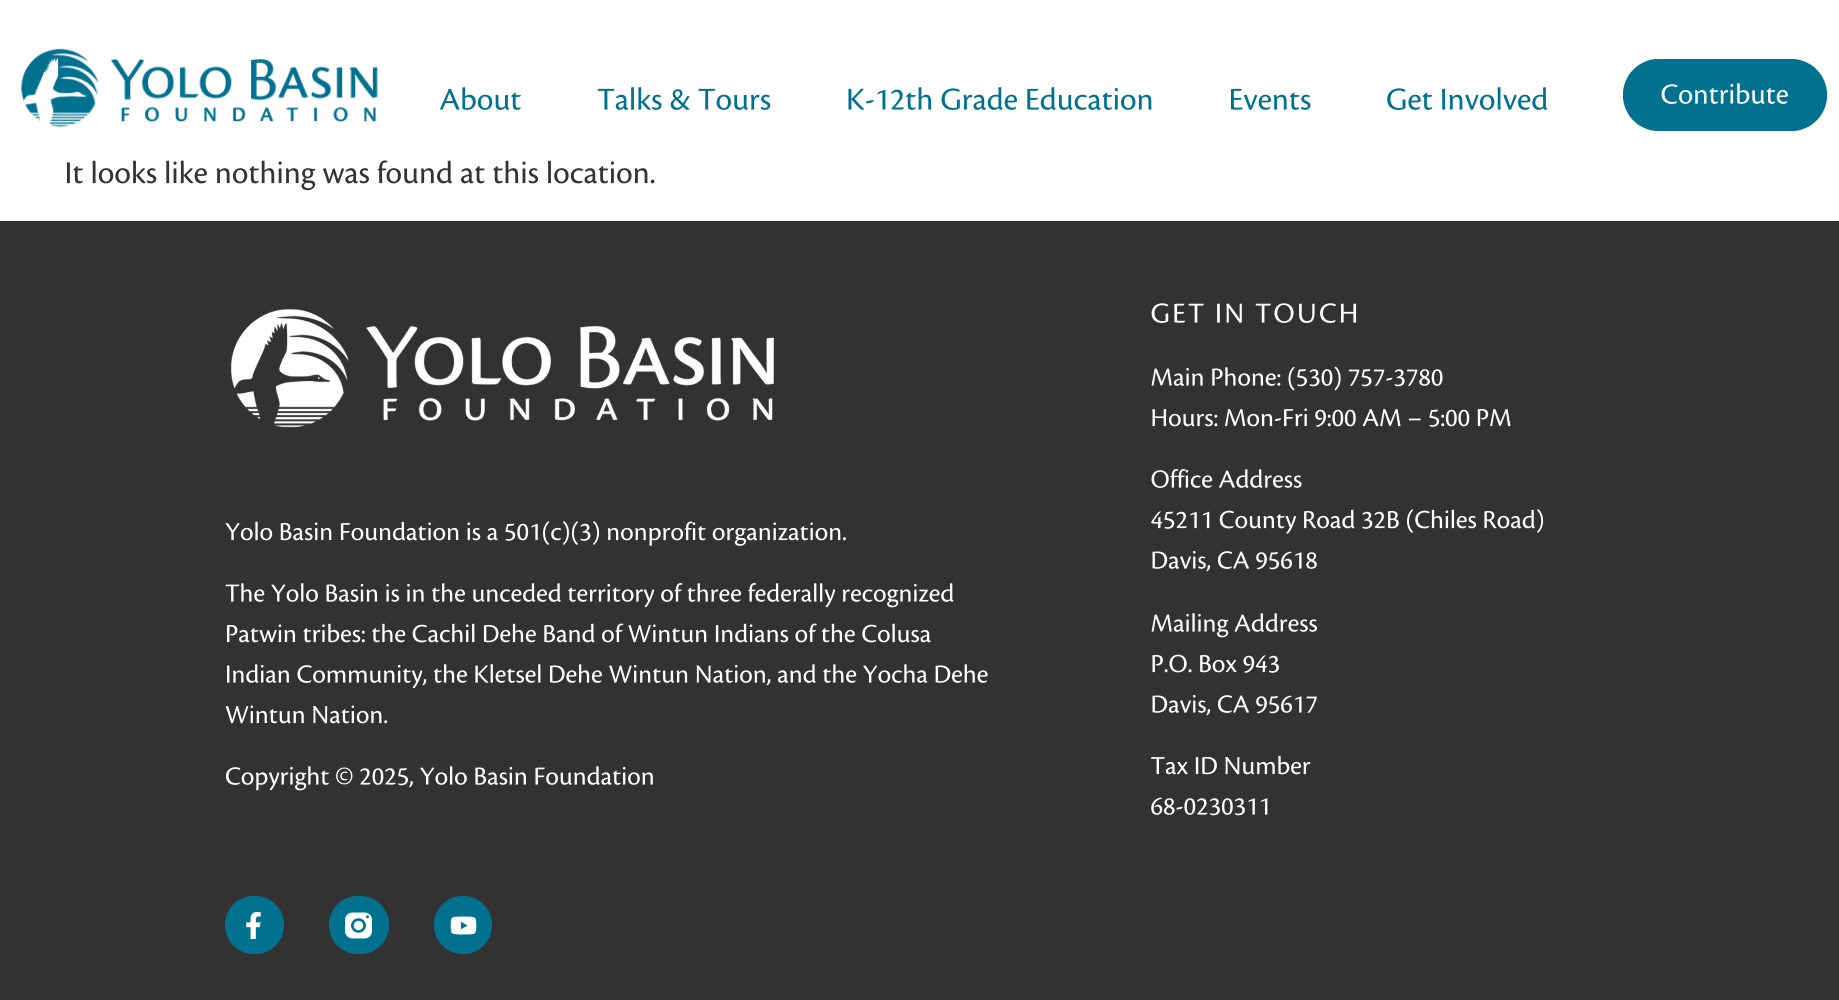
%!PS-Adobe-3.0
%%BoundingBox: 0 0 1839 1000
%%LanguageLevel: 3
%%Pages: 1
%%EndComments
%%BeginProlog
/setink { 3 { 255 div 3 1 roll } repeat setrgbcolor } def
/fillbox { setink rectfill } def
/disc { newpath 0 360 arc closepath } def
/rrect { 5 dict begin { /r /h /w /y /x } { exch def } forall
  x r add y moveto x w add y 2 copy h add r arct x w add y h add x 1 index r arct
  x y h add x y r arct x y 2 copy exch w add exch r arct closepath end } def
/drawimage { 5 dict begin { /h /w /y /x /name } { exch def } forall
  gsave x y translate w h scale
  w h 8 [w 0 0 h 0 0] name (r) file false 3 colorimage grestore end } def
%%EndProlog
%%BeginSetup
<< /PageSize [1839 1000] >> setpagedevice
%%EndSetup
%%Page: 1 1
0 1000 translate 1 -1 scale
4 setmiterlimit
0 0 1839 1000 255 255 255 fillbox
(assets/img1.rgb) 21 48 357 80 drawimage
(assets/img2.rgb) 440 87 81 23 drawimage
(assets/img3.rgb) 597 87 174 23 drawimage
(assets/img4.rgb) 848 87 304 23 drawimage
(assets/img5.rgb) 1230 88 81 22 drawimage
(assets/img6.rgb) 1387 87 161 23 drawimage
0 113 143 setink
1623 59 204 72 36 rrect fill
(assets/img7.rgb) 1661 83 127 21 drawimage
(assets/img8.rgb) 66 160 589 31 drawimage
0 221 1839 779 50 50 50 fillbox
(assets/img9.rgb) 231 309 543 119 drawimage
(assets/img10.rgb) 225 521 621 25 drawimage
(assets/img11.rgb) 225 583 729 25 drawimage
(assets/img12.rgb) 226 623 705 20 drawimage
(assets/img13.rgb) 226 664 762 25 drawimage
(assets/img14.rgb) 225 705 163 19 drawimage
(assets/img15.rgb) 226 766 427 25 drawimage
0 113 143 setink
225 896 59 58 29 rrect fill
(assets/img16.rgb) 246 912 15 27 drawimage
329 896 60 58 29 rrect fill
(assets/img17.rgb) 345 912 27 27 drawimage
463 925 29 disc fill
(assets/img18.rgb) 450 916 27 19 drawimage
(assets/img19.rgb) 1151 303 206 20 drawimage
(assets/img20.rgb) 1151 366 292 25 drawimage
(assets/img21.rgb) 1152 408 359 19 drawimage
(assets/img22.rgb) 1151 469 151 19 drawimage
(assets/img23.rgb) 1151 509 393 25 drawimage
(assets/img24.rgb) 1152 550 165 22 drawimage
(assets/img25.rgb) 1151 613 166 25 drawimage
(assets/img26.rgb) 1152 654 127 19 drawimage
(assets/img27.rgb) 1152 694 165 22 drawimage
(assets/img28.rgb) 1151 755 160 20 drawimage
(assets/img29.rgb) 1151 797 117 19 drawimage
showpage
%%EOF
